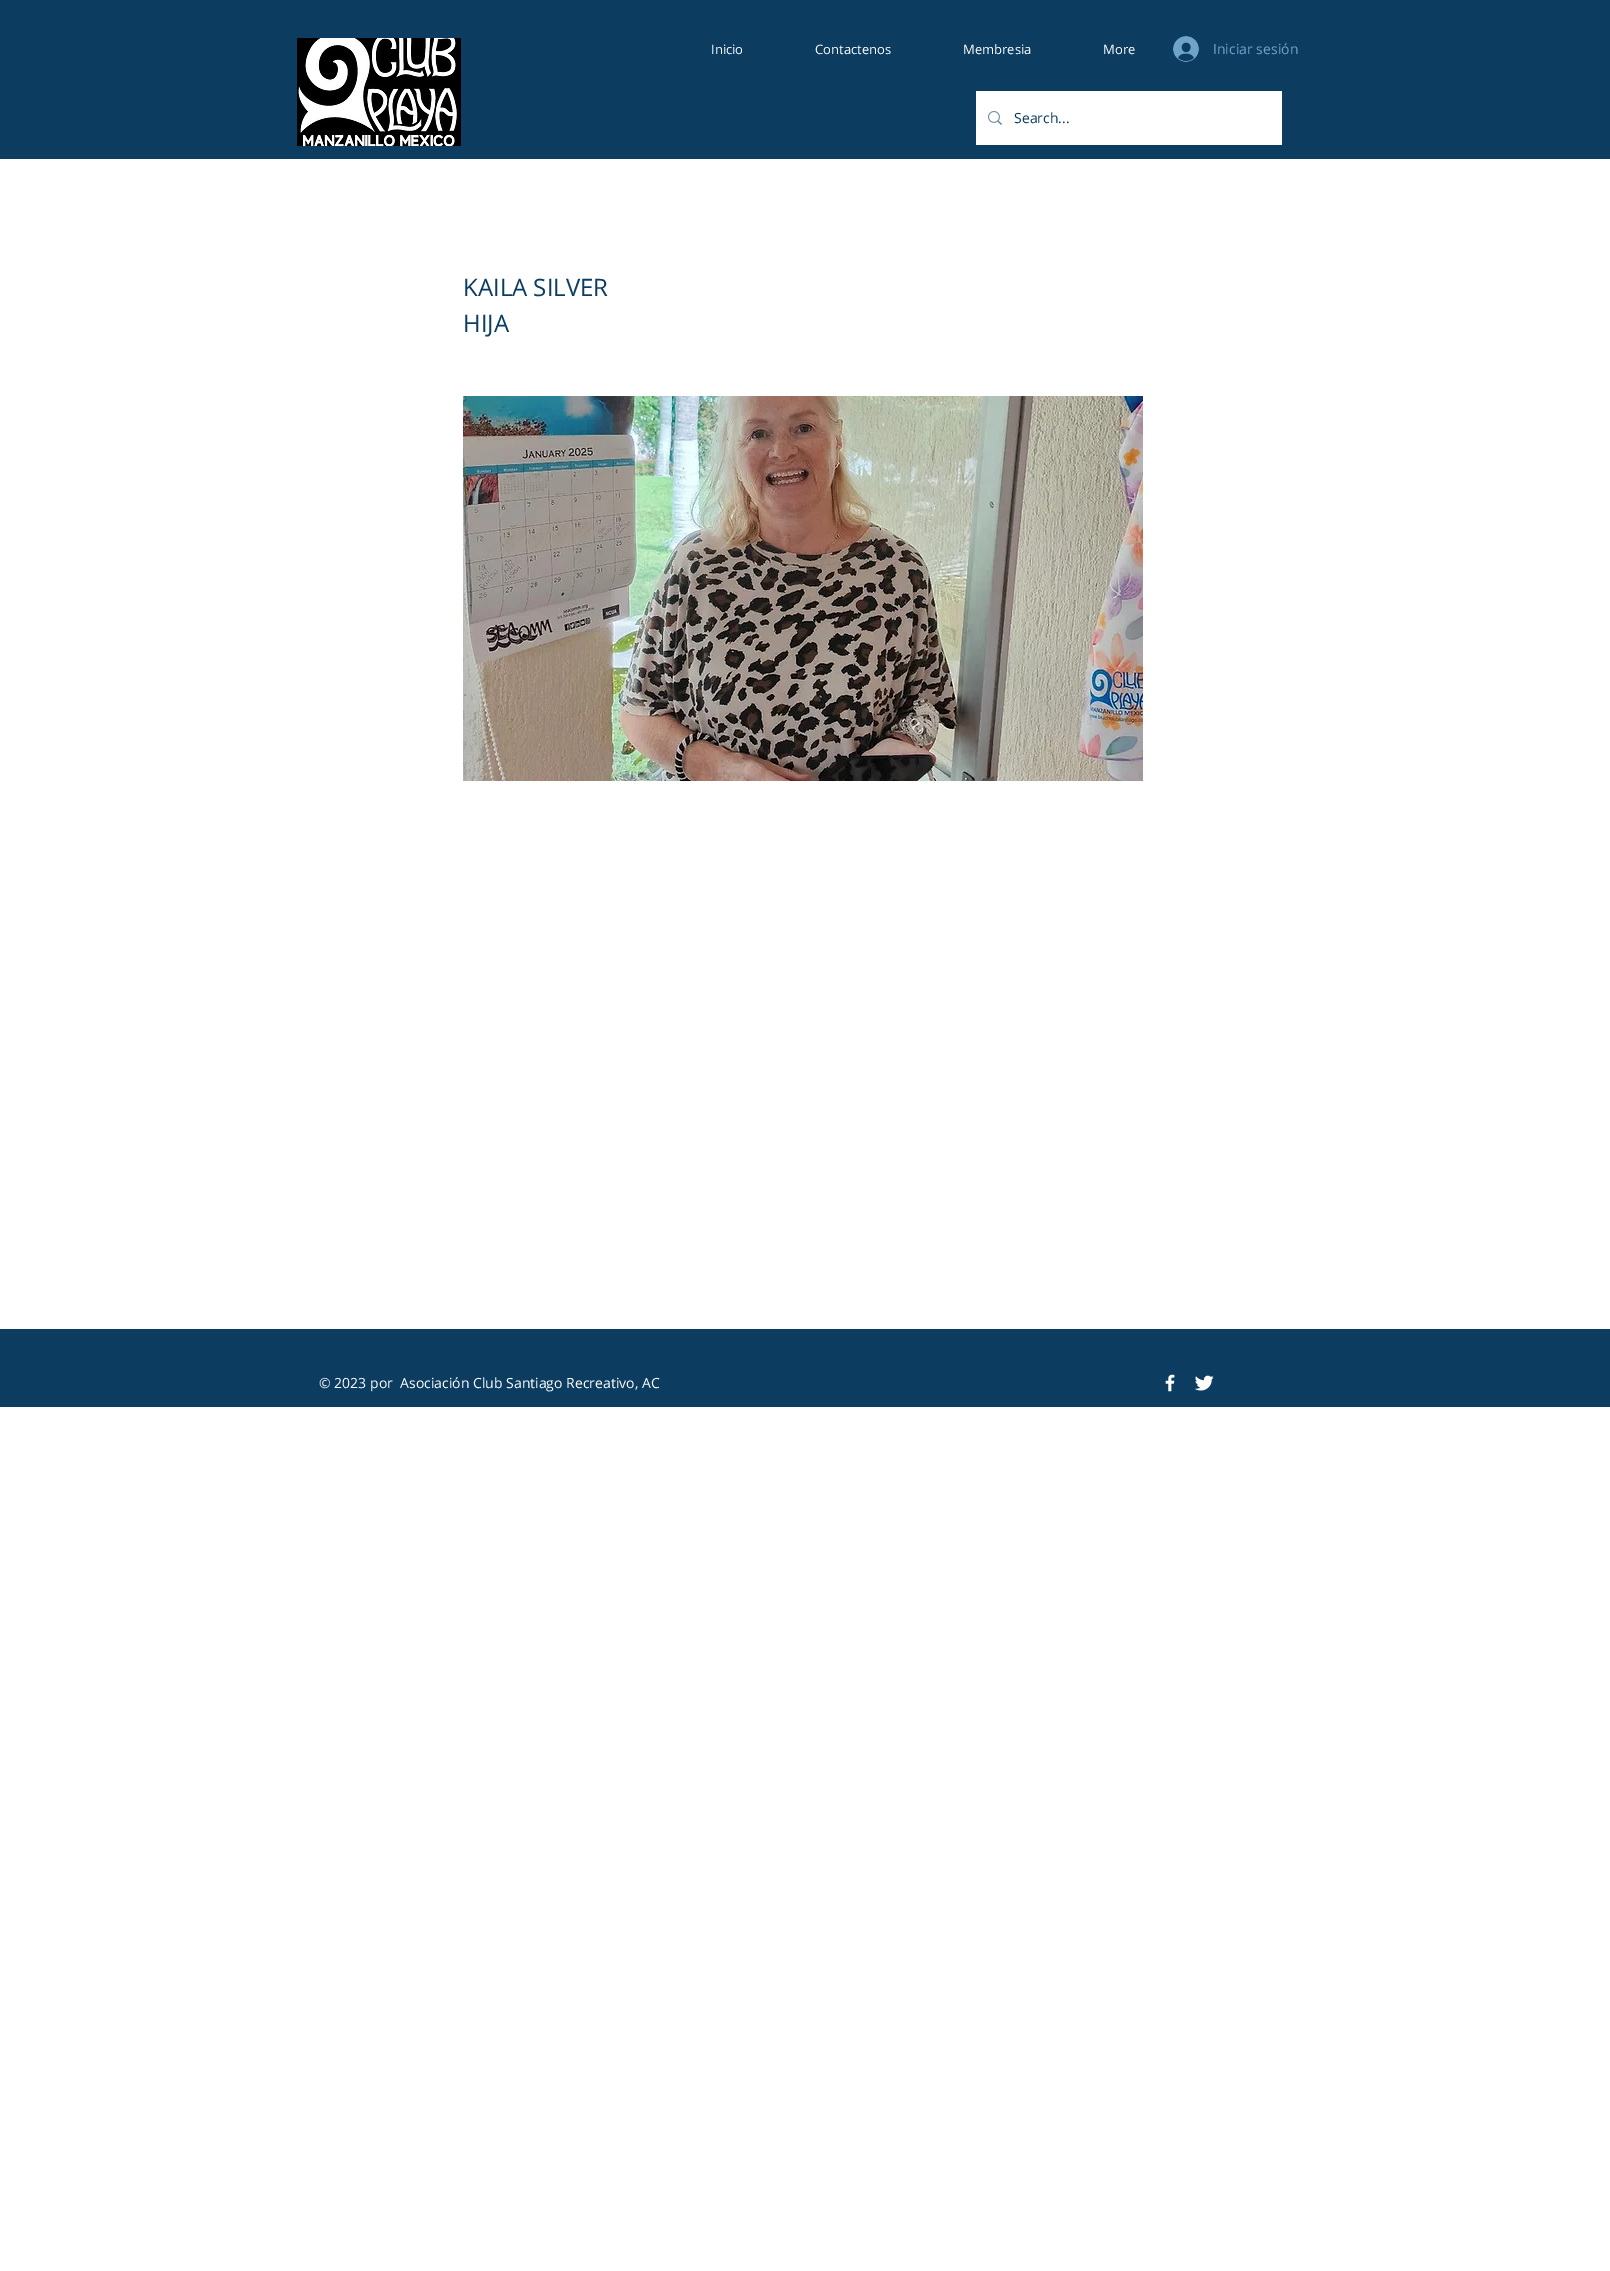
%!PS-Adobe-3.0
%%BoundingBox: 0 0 1610 2271
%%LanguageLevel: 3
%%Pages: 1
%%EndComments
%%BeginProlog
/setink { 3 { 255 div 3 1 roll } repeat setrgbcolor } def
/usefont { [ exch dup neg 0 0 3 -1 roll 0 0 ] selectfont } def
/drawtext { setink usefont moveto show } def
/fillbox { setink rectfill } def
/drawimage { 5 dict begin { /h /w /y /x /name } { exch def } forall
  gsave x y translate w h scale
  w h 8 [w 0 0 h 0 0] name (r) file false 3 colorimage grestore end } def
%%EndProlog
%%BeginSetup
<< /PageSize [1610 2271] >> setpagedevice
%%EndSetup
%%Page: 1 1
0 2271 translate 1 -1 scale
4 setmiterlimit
0 0 1610 2271 255 255 255 fillbox
0 0 1610 159 12 60 96 fillbox
(assets/img1.rgb) 297 38 164 108 drawimage
(Inicio) 711 54 /OpenSans-Regular 13 255 255 255 drawtext
(Contactenos) 815 54 /OpenSans-Regular 13 255 255 255 drawtext
(Membresia) 963 54 /OpenSans-Regular 13 255 255 255 drawtext
(More) 1103 54 /OpenSans-Regular 13 255 255 255 drawtext
(assets/img2.rgb) 1173 36 26 26 drawimage
(Iniciar sesión) 1213 54 /OpenSans-Regular 14 110 164 202 drawtext
976 91 306 54 255 255 255 fillbox
(assets/img3.rgb) 988 111 14 14 drawimage
(Search...) 1014 123 /OpenSans-Regular 14 12 60 96 drawtext
(KAILA SILVER) 463 296 /OpenSans-Regular 24 12 60 96 drawtext
(HIJA) 463 332 /OpenSans-Regular 24 12 60 96 drawtext
(assets/img4.rgb) 463 396 680 385 drawimage
0 1329 1610 78 12 60 96 fillbox
(© 2023 por) 319 1388 /OpenSans-Regular 14 255 255 255 drawtext
(Asociación Club Santiago Recreativo, AC) 400 1388 /OpenSans-Regular 14 255 255 255 drawtext
(assets/img5.rgb) 1165 1374 10 18 drawimage
(assets/img6.rgb) 1195 1375 19 16 drawimage
showpage
%%EOF
